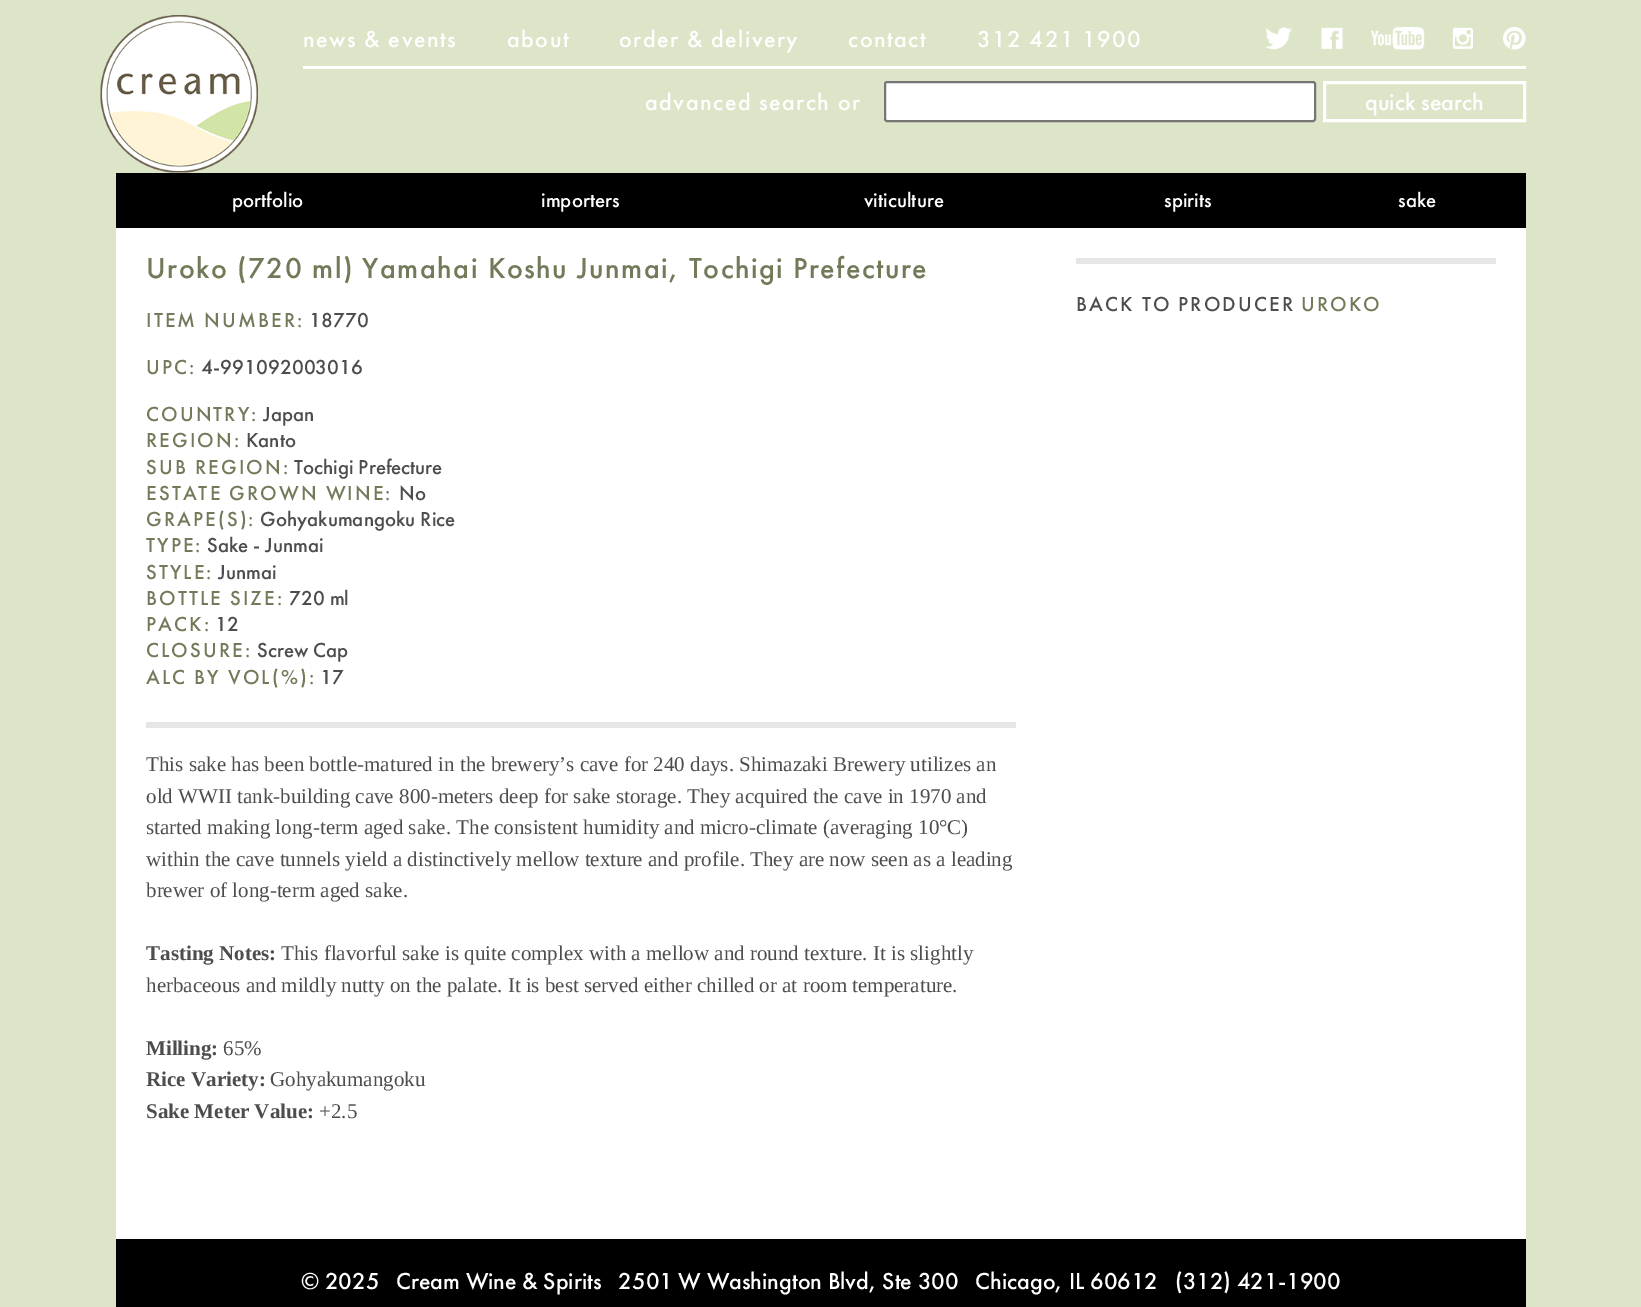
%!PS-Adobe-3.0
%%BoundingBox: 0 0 1641 1307
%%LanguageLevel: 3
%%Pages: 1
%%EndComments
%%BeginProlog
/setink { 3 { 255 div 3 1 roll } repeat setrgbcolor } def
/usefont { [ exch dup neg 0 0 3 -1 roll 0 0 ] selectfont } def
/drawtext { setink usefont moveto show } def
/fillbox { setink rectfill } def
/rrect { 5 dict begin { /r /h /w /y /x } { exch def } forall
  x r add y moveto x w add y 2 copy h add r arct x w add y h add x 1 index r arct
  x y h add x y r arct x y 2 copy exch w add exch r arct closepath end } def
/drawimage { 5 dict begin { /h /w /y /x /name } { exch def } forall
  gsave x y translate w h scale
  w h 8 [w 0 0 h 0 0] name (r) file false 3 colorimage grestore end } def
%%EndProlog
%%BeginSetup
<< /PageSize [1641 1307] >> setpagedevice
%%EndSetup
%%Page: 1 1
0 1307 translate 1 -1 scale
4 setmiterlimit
0 0 1641 1307 221 229 201 fillbox
(assets/img1.rgb) 100 15 158 158 drawimage
303 66 1223 3 255 255 255 fillbox
/FuturaPT-Medium 24 usefont
303 47 moveto 1.5 0 (news & events) ashow
507 47 moveto 1.5 0 (about) ashow
619 47 moveto 1.5 0 (order & delivery) ashow
848 47 moveto 1.5 0 (contact) ashow
977 47 moveto 1.5 0 (312 421 1900) ashow
(assets/img2.rgb) 1266 27 26 23 drawimage
(assets/img3.rgb) 1321 27 22 22 drawimage
(assets/img4.rgb) 1371 27 54 23 drawimage
(assets/img5.rgb) 1452 27 21 22 drawimage
(assets/img6.rgb) 1503 27 23 23 drawimage
645 110 moveto 1.5 0 (advanced search or) ashow
885 82 430 39 2 rrect gsave fill grestore
118 118 118 setink
2 setlinewidth
stroke
255 255 255 setink
3 setlinewidth
1324.5 82.5 200 38 rectstroke
(quick search) 1365 110 /FuturaPT-Medium 24 255 255 255 drawtext
116 173 1410 55 0 0 0 fillbox
(portfolio) 232 207 /FuturaPT-Medium 21 255 255 255 drawtext
(importers) 541 207 /FuturaPT-Medium 21 255 255 255 drawtext
(viticulture) 864 207 /FuturaPT-Medium 21 255 255 255 drawtext
(spirits) 1164 207 /FuturaPT-Medium 21 255 255 255 drawtext
(sake) 1398 207 /FuturaPT-Medium 21 255 255 255 drawtext
116 228 1410 1011 255 255 255 fillbox
/FuturaPT-Medium 30 usefont
113 122 89 setink
146 278 moveto 1.5 0 (Uroko \(720 ml\) Yamahai Koshu Junmai, Tochigi Prefecture) ashow
146 722 870 6 230 230 230 fillbox
/FuturaPT-Medium 21 usefont
113 122 89 setink
146 327 moveto 2.1 0 (ITEM NUMBER:) ashow
(18770) 309 327 /FuturaPT-Medium 21 77 77 77 drawtext
113 122 89 setink
146 374 moveto 2.1 0 (UPC:) ashow
(4-991092003016) 201 374 /FuturaPT-Medium 21 77 77 77 drawtext
113 122 89 setink
146 421 moveto 2.1 0 (COUNTRY:) ashow
(Japan) 263 421 /FuturaPT-Medium 21 77 77 77 drawtext
113 122 89 setink
146 447 moveto 2.1 0 (REGION:) ashow
(Kanto) 246 447 /FuturaPT-Medium 21 77 77 77 drawtext
113 122 89 setink
146 474 moveto 2.1 0 (SUB REGION:) ashow
(Tochigi Prefecture) 294 474 /FuturaPT-Medium 21 77 77 77 drawtext
113 122 89 setink
146 500 moveto 2.1 0 (ESTATE GROWN WINE:) ashow
(No) 399 500 /FuturaPT-Medium 21 77 77 77 drawtext
113 122 89 setink
146 526 moveto 2.1 0 (GRAPE\(S\):) ashow
(Gohyakumangoku Rice) 260 526 /FuturaPT-Medium 21 77 77 77 drawtext
113 122 89 setink
146 552 moveto 2.1 0 (TYPE:) ashow
(Sake - Junmai) 207 552 /FuturaPT-Medium 21 77 77 77 drawtext
113 122 89 setink
146 579 moveto 2.1 0 (STYLE:) ashow
(Junmai) 218 579 /FuturaPT-Medium 21 77 77 77 drawtext
113 122 89 setink
146 605 moveto 2.1 0 (BOTTLE SIZE:) ashow
(720 ml) 289 605 /FuturaPT-Medium 21 77 77 77 drawtext
113 122 89 setink
146 631 moveto 2.1 0 (PACK:) ashow
(12) 215 631 /FuturaPT-Medium 21 77 77 77 drawtext
113 122 89 setink
146 657 moveto 2.1 0 (CLOSURE:) ashow
(Screw Cap) 257 657 /FuturaPT-Medium 21 77 77 77 drawtext
113 122 89 setink
146 684 moveto 2.1 0 (ALC BY VOL\(%\):) ashow
(17) 320 684 /FuturaPT-Medium 21 77 77 77 drawtext
(This sake has been bottle-matured in the brewery’s cave for 240 days. Shimazaki Brewery utilizes an) 146 771 /LiberationSerif-Regular 21 77 77 77 drawtext
(old WWII tank-building cave 800-meters deep for sake storage. They acquired the cave in 1970 and) 146 803 /LiberationSerif-Regular 21 77 77 77 drawtext
(started making long-term aged sake. The consistent humidity and micro-climate \(averaging 10°C\)) 146 834 /LiberationSerif-Regular 21 77 77 77 drawtext
(within the cave tunnels yield a distinctively mellow texture and profile. They are now seen as a leading) 146 866 /LiberationSerif-Regular 21 77 77 77 drawtext
(brewer of long-term aged sake.) 146 897 /LiberationSerif-Regular 21 77 77 77 drawtext
(Tasting Notes:) 146 960 /LiberationSerif-Bold 21 77 77 77 drawtext
(This flavorful sake is quite complex with a mellow and round texture. It is slightly) 281 960 /LiberationSerif-Regular 21 77 77 77 drawtext
(herbaceous and mildly nutty on the palate. It is best served either chilled or at room temperature.) 146 992 /LiberationSerif-Regular 21 77 77 77 drawtext
(Milling:) 146 1055 /LiberationSerif-Bold 21 77 77 77 drawtext
(65%) 223 1055 /LiberationSerif-Regular 21 77 77 77 drawtext
(Rice Variety:) 146 1086 /LiberationSerif-Bold 21 77 77 77 drawtext
(Gohyakumangoku) 270 1086 /LiberationSerif-Regular 21 77 77 77 drawtext
(Sake Meter Value:) 146 1118 /LiberationSerif-Bold 21 77 77 77 drawtext
(+2.5) 319 1118 /LiberationSerif-Regular 21 77 77 77 drawtext
1076 258 420 6 230 230 230 fillbox
/FuturaPT-Medium 21 usefont
77 77 77 setink
1076 311 moveto 2.1 0 (BACK TO PRODUCER) ashow
113 122 89 setink
1301 311 moveto 2.1 0 (UROKO) ashow
116 1239 1410 68 0 0 0 fillbox
(© 2025) 301 1289 /FuturaPT-Medium 24 255 255 255 drawtext
(Cream Wine & Spirits   2501 W Washington Blvd, Ste 300   Chicago, IL 60612   \(312\) 421-1900) 396 1289 /FuturaPT-Medium 24 255 255 255 drawtext
showpage
%%EOF
